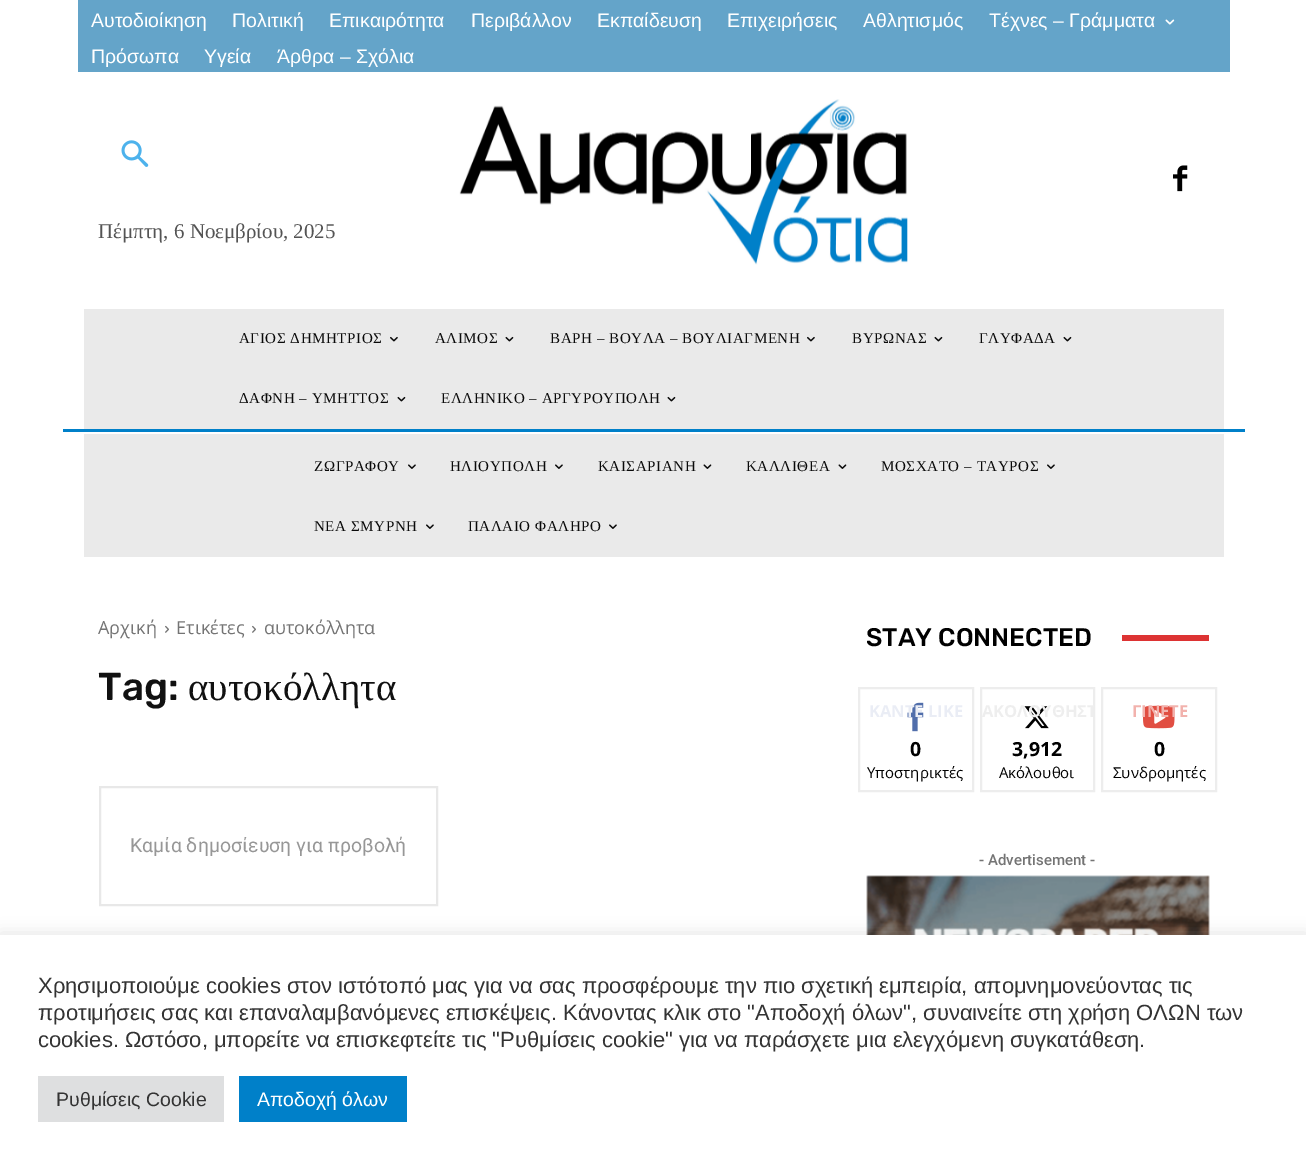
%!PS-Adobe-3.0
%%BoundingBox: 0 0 1306 1166
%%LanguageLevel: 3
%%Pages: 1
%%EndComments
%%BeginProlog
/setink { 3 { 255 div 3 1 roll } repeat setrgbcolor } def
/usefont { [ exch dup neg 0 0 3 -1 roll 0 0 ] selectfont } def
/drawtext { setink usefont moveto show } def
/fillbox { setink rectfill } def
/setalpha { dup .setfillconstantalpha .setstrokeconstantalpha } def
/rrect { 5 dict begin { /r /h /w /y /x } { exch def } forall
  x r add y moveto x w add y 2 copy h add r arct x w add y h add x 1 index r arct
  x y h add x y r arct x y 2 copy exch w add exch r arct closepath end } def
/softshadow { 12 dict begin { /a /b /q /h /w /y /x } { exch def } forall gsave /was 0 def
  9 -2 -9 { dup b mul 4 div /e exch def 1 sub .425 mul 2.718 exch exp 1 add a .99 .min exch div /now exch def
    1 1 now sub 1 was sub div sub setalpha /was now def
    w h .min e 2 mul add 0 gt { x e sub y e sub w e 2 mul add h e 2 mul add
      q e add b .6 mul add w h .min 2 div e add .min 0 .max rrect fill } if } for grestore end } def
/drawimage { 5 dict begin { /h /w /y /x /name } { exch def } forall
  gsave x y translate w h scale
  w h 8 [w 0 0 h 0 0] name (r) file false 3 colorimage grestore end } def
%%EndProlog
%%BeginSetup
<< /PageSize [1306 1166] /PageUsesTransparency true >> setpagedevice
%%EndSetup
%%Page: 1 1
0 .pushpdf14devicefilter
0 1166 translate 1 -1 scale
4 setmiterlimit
0 0 1306 1166 255 255 255 fillbox
78 0 1152 72 100 164 201 fillbox
(Αυτοδιοίκηση) 91 27 /LiberationSans-Regular 19.5 255 255 255 drawtext
(Πολιτική) 232 27 /LiberationSans-Regular 19.5 255 255 255 drawtext
(Επικαιρότητα) 329 27 /LiberationSans-Regular 19.5 255 255 255 drawtext
(Περιβάλλον) 471 27 /LiberationSans-Regular 19.5 255 255 255 drawtext
(Εκπαίδευση) 597 27 /LiberationSans-Regular 19.5 255 255 255 drawtext
(Επιχειρήσεις) 727 27 /LiberationSans-Regular 19.5 255 255 255 drawtext
(Αθλητισμός) 863 27 /LiberationSans-Regular 19.5 255 255 255 drawtext
(Τέχνες – Γράμματα) 989 27 /LiberationSans-Regular 19.5 255 255 255 drawtext
(assets/img1.rgb) 1165 19 10 6 drawimage
(Πρόσωπα) 91 63 /LiberationSans-Regular 19.5 255 255 255 drawtext
(Υγεία) 204 63 /LiberationSans-Regular 19.5 255 255 255 drawtext
(Άρθρα – Σχόλια) 277 63 /LiberationSans-Regular 19.5 255 255 255 drawtext
(assets/img2.rgb) 459 99 449 166 drawimage
(assets/img3.rgb) 1173 165 15 27 drawimage
(assets/img4.rgb) 121 140 28 27 drawimage
(Πέμπτη, 6 Νοεμβρίου, 2025) 98 238 /LiberationSerif-Regular 21 84 84 84 drawtext
84 309 1140 120 234 234 234 fillbox
/LiberationSerif-Regular 15 usefont
10 10 10 setink
239 343 moveto 0.6 0 (ΑΓΙΟΣ ΔΗΜΗΤΡΙΟΣ) ashow
(assets/img5.rgb) 390 336 8 6 drawimage
435 343 moveto 0.6 0 (ΑΛΙΜΟΣ) ashow
(assets/img6.rgb) 505 336 9 6 drawimage
550 343 moveto 0.6 0 (ΒΑΡΗ – ΒΟΥΛΑ – ΒΟΥΛΙΑΓΜΕΝΗ) ashow
(assets/img5.rgb) 807 336 8 6 drawimage
852 343 moveto 0.6 0 (ΒΥΡΩΝΑΣ) ashow
(assets/img6.rgb) 934 336 9 6 drawimage
979 343 moveto 0.6 0 (ΓΛΥΦΑΔΑ) ashow
(assets/img6.rgb) 1063 336 9 6 drawimage
239 403 moveto 0.6 0 (ΔΑΦΝΗ – ΥΜΗΤΤΟΣ) ashow
(assets/img6.rgb) 397 396 9 6 drawimage
441 403 moveto 0.6 0 (ΕΛΛΗΝΙΚΟ – ΑΡΓΥΡΟΥΠΟΛΗ) ashow
(assets/img6.rgb) 667 396 9 6 drawimage
63 429 1182 3 0 128 201 fillbox
84 434 1140 123 234 234 234 fillbox
10 10 10 setink
314 471 moveto 0.6 0 (ΖΩΓΡΑΦΟΥ) ashow
(assets/img7.rgb) 408 464 8 5 drawimage
450 471 moveto 0.6 0 (ΗΛΙΟΥΠΟΛΗ) ashow
(assets/img7.rgb) 555 464 8 5 drawimage
598 471 moveto 0.6 0 (ΚΑΙΣΑΡΙΑΝΗ) ashow
(assets/img8.rgb) 703 464 9 5 drawimage
746 471 moveto 0.6 0 (ΚΑΛΛΙΘΕΑ) ashow
(assets/img8.rgb) 838 464 9 5 drawimage
881 471 moveto 0.6 0 (ΜΟΣΧΑΤΟ – ΤΑΥΡΟΣ) ashow
(assets/img7.rgb) 1047 464 8 5 drawimage
314 531 moveto 0.6 0 (ΝΕΑ ΣΜΥΡΝΗ) ashow
(assets/img7.rgb) 426 524 8 5 drawimage
468 531 moveto 0.6 0 (ΠΑΛΑΙΟ ΦΑΛΗΡΟ) ashow
(assets/img7.rgb) 609 524 8 5 drawimage
(Αρχική) 98 634 /OpenSans-Regular 18 116 116 116 drawtext
(assets/img9.rgb) 165 625 4 8 drawimage
(Ετικέτες) 176 634 /OpenSans-Regular 18 116 116 116 drawtext
(assets/img9.rgb) 252 625 4 8 drawimage
(αυτοκόλλητα) 264 634 /OpenSans-Regular 18 116 116 116 drawtext
(Tag:) 98 700 /Rubik-Medium 39 17 17 17 drawtext
(αυτοκόλλητα) 188 700 /LiberationSerif-Regular 39 17 17 17 drawtext
232 232 232 setink
2 setlinewidth
100 787 337 118 rectstroke
(Καμία δημοσίευση για προβολή) 130 852 /Roboto-Regular 19.5 151 151 151 drawtext
(STAY CONNECTED) 866 646 /Rubik-Medium 25.5 0 0 0 drawtext
1122 635 87 6 221 51 51 fillbox
237 237 237 setink
859 688 114 103 rectstroke
(assets/img10.rgb) 907 702 17 30 drawimage
(ΚΑΝΤΕ LIKE) 869 717 /OpenSans-Bold 16.5 234 237 245 drawtext
(0) 910 756 /OpenSans-Bold 19.5 0 0 0 drawtext
(Υποστηρικτές) 867 778 /OpenSans-Regular 15 0 0 0 drawtext
237 237 237 setink
981 688 113 103 rectstroke
(assets/img11.rgb) 1024 706 25 23 drawimage
gsave
981 689 113 102 rectclip
(ΑΚΟΛΟΥΘΗΣΤ) 982 717 /OpenSans-Bold 16.5 238 238 238 drawtext
grestore
(3,912) 1012 756 /OpenSans-Bold 19.5 0 0 0 drawtext
(Ακόλουθοι) 999 778 /OpenSans-Regular 15 0 0 0 drawtext
237 237 237 setink
1102 688 114 103 rectstroke
(assets/img12.rgb) 1143 705 32 24 drawimage
(ΓΙΝΕΤΕ) 1132 717 /OpenSans-Bold 16.5 242 178 173 drawtext
(0) 1154 756 /OpenSans-Bold 19.5 0 0 0 drawtext
(Συνδρομητές) 1113 778 /OpenSans-Regular 15 0 0 0 drawtext
(- Advertisement -) 979 865 /Roboto-Medium 15 116 116 116 drawtext
(assets/img13.rgb) 866 875 344 60 drawimage
172 171 171 setink
0 933 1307 233 0 7.5 0.3 softshadow
0 935 1306 231 255 255 255 fillbox
(Χρησιμοποιούμε cookies στον ιστότοπό μας για να σας προσφέρουμε την πιο σχετική εμπειρία, απομνημονεύοντας τις) 38 993 /LiberationSans-Regular 22 51 51 51 drawtext
(προτιμήσεις σας και επαναλαμβανόμενες επισκέψεις. Κάνοντας κλικ στο "Αποδοχή όλων", συναινείτε στη χρήση ΟΛΩΝ των) 38 1020 /LiberationSans-Regular 22 51 51 51 drawtext
(cookies. Ωστόσο, μπορείτε να επισκεφτείτε τις "Ρυθμίσεις cookie" για να παράσχετε μια ελεγχόμενη συγκατάθεση.) 38 1047 /LiberationSans-Regular 22 51 51 51 drawtext
38 1076 186 46 222 223 224 fillbox
(Ρυθμίσεις Cookie) 56 1106 /LiberationSans-Regular 19.5 51 51 51 drawtext
239 1076 168 46 0 128 201 fillbox
(Αποδοχή όλων) 257 1106 /LiberationSans-Regular 19.5 255 255 255 drawtext
.poppdf14devicefilter showpage
%%EOF
